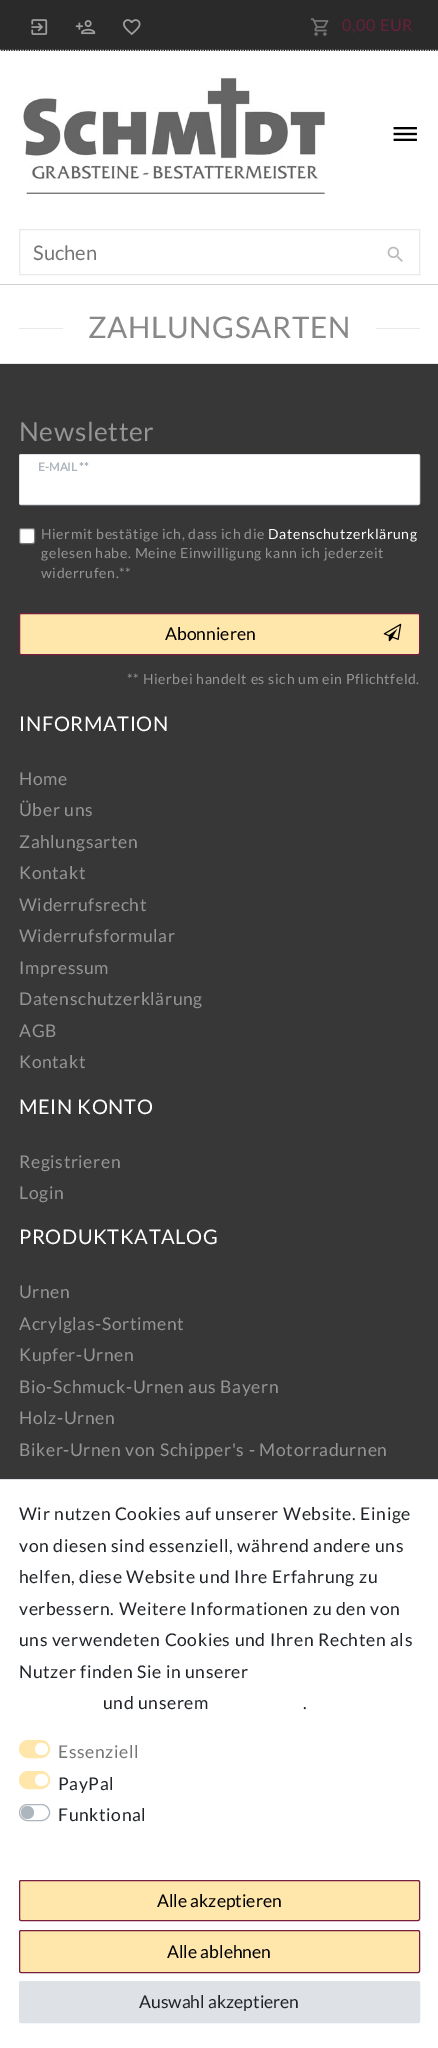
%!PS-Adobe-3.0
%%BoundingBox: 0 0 438 2048
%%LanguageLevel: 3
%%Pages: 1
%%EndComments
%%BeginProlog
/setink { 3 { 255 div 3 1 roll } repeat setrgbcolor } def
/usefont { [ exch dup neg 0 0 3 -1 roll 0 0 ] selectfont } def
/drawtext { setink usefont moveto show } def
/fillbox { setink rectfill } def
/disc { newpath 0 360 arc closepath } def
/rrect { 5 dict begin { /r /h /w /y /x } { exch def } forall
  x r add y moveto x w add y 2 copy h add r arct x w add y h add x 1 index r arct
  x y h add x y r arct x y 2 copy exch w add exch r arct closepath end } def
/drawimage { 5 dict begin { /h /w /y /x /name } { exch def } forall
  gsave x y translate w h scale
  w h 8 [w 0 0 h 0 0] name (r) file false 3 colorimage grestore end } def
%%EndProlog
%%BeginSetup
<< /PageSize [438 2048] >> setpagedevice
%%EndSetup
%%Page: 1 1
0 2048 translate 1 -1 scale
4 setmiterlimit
0 0 438 2048 255 255 255 fillbox
0 0 438 51 42 42 42 fillbox
233 233 233 setink
1.2 setlinewidth
[1.25 1.25] 0 setdash
0 50.5 moveto 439 50.5 lineto stroke
(assets/img1.rgb) 31 19 17 16 drawimage
(assets/img2.rgb) 75 20 21 15 drawimage
(assets/img3.rgb) 123 19 18 17 drawimage
(assets/img4.rgb) 310 18 19 18 drawimage
/Lato-Regular 16.25 usefont
104 32 60 setink
342 31 moveto 0.62 0 (0,00 EUR) ashow
0 284 438 1 208 208 208 fillbox
(assets/img5.rgb) 23 77 302 118 drawimage
(assets/img6.rgb) 393 127 24 14 drawimage
233 233 233 setink
1 setlinewidth
[] 0 setdash
19.5 229.5 400 45 rectstroke
(Suchen) 33 260 /Lato-Regular 20.1 117 117 117 drawtext
(assets/img7.rgb) 387 246 16 16 drawimage
19 328 401 1 233 233 233 fillbox
63 328 313 1 255 255 255 fillbox
/Lato-Regular 29.75 usefont
136 136 136 setink
88 338 moveto 0.62 0 (ZAHLUNGSARTEN) ashow
0 364 438 1115 55 55 55 fillbox
0 363 438 1 233 233 233 fillbox
/Lato-Regular 26.25 usefont
149 149 149 setink
19 441 moveto 0.62 0 (Newsletter) ashow
222 226 230 setink
19.5 454.5 400 50 1.5 rrect stroke
255 255 255 setink
20 455 399 49 0.5 rrect fill
/Lato-Bold 11.5 usefont
173 181 189 setink
38 471 moveto 0.1 0 (E-MAIL **) ashow
255 255 255 setink
19.5 528.5 15 15 2 rrect gsave fill grestore
118 118 118 setink
stroke
/Lato-Regular 14 usefont
149 149 149 setink
41 539 moveto 0.62 0 (Hiermit bestätige ich, dass ich die) ashow
255 255 255 setink
268 539 moveto 0.62 0 (Datenschutzerklärung) ashow
149 149 149 setink
41 558 moveto 0.62 0 (gelesen habe. Meine Einwilligung kann ich jederzeit) ashow
41 578 moveto 0.62 0 (widerrufen.**) ashow
255 230 170 setink
19.5 613.5 400 41 1.5 rrect gsave fill grestore
120 30 65 setink
stroke
(Abonnieren) 165 640 /Lato-Regular 17.5 0 0 0 drawtext
(assets/img8.rgb) 383 623 19 19 drawimage
/Lato-Regular 14 usefont
149 149 149 setink
127 684 moveto 0.62 0 (** Hierbei handelt es sich um ein Pflichtfeld.) ashow
/Lato-Regular 20.1 usefont
255 255 255 setink
19 731 moveto 0.62 0 (INFORMATION) ashow
/Lato-Regular 17.5 usefont
149 149 149 setink
19 785 moveto 0.62 0 (Home) ashow
19 816 moveto 0.62 0 (Über uns) ashow
19 848 moveto 0.62 0 (Zahlungsarten) ashow
19 879 moveto 0.62 0 (Kontakt) ashow
19 911 moveto 0.62 0 (Widerrufsrecht) ashow
19 942 moveto 0.62 0 (Widerrufsformular) ashow
19 974 moveto 0.62 0 (Impressum) ashow
19 1005 moveto 0.62 0 (Datenschutzerklärung) ashow
19 1037 moveto 0.62 0 (AGB) ashow
19 1068 moveto 0.62 0 (Kontakt) ashow
/Lato-Regular 20.1 usefont
255 255 255 setink
19 1114 moveto 0.62 0 (MEIN KONTO) ashow
/Lato-Regular 17.5 usefont
149 149 149 setink
19 1168 moveto 0.62 0 (Registrieren) ashow
19 1199 moveto 0.62 0 (Login) ashow
/Lato-Regular 20.1 usefont
255 255 255 setink
19 1244 moveto 0.62 0 (PRODUKTKATALOG) ashow
/Lato-Regular 17.5 usefont
149 149 149 setink
19 1298 moveto 0.62 0 (Urnen) ashow
19 1330 moveto 0.62 0 (Acrylglas-Sortiment) ashow
19 1361 moveto 0.62 0 (Kupfer-Urnen) ashow
19 1393 moveto 0.62 0 (Bio-Schmuck-Urnen aus Bayern) ashow
19 1424 moveto 0.62 0 (Holz-Urnen) ashow
19 1456 moveto 0.62 0 (Biker-Urnen von Schipper's - Motorradurnen) ashow
0 1479 438 1 222 226 230 fillbox
33 37 41 setink
19 1520 moveto 0.62 0 (Wir nutzen Cookies auf unserer Website. Einige) ashow
19 1552 moveto 0.62 0 (von diesen sind essenziell, während andere uns) ashow
19 1583 moveto 0.62 0 (helfen, diese Website und Ihre Erfahrung zu) ashow
19 1615 moveto 0.62 0 (verbessern. Weitere Informationen zu den von) ashow
19 1646 moveto 0.62 0 (uns verwendeten Cookies und Ihren Rechten als) ashow
19 1678 moveto 0.62 0 (Nutzer finden Sie in unserer) ashow
103 1709 moveto 0.62 0 (und unserem) ashow
303 1709 moveto 0.62 0 (.) ashow
255 230 170 setink
19.5 1740.5 30 17 8.5 rrect gsave fill grestore
stroke
255 255 255 setink
35 1743 13 12 6 rrect fill
117 117 117 setink
58 1758 moveto 0.62 0 (Essenziell) ashow
255 230 170 setink
19.5 1771.5 30 17 8.5 rrect gsave fill grestore
stroke
255 255 255 setink
35 1774 13 12 6 rrect fill
33 37 41 setink
58 1790 moveto 0.62 0 (PayPal) ashow
173 181 189 setink
19.5 1804.5 30 16 8 rrect stroke
27.5 1812.5 6.5 disc fill
33 37 41 setink
58 1821 moveto 0.62 0 (Funktional) ashow
255 230 170 setink
19.5 1880.5 400 40 1.5 rrect gsave fill grestore
120 30 65 setink
stroke
(Alle akzeptieren) 157 1907 /Lato-Regular 17.5 0 0 0 drawtext
255 230 170 setink
19.5 1930.5 400 42 1.5 rrect gsave fill grestore
120 30 65 setink
stroke
(Alle ablehnen) 167 1958 /Lato-Regular 17.5 0 0 0 drawtext
222 226 230 setink
19.5 1981.5 400 41 1.5 rrect gsave fill grestore
stroke
(Auswahl akzeptieren) 139 2008 /Lato-Regular 17.5 33 37 41 drawtext
showpage
%%EOF
